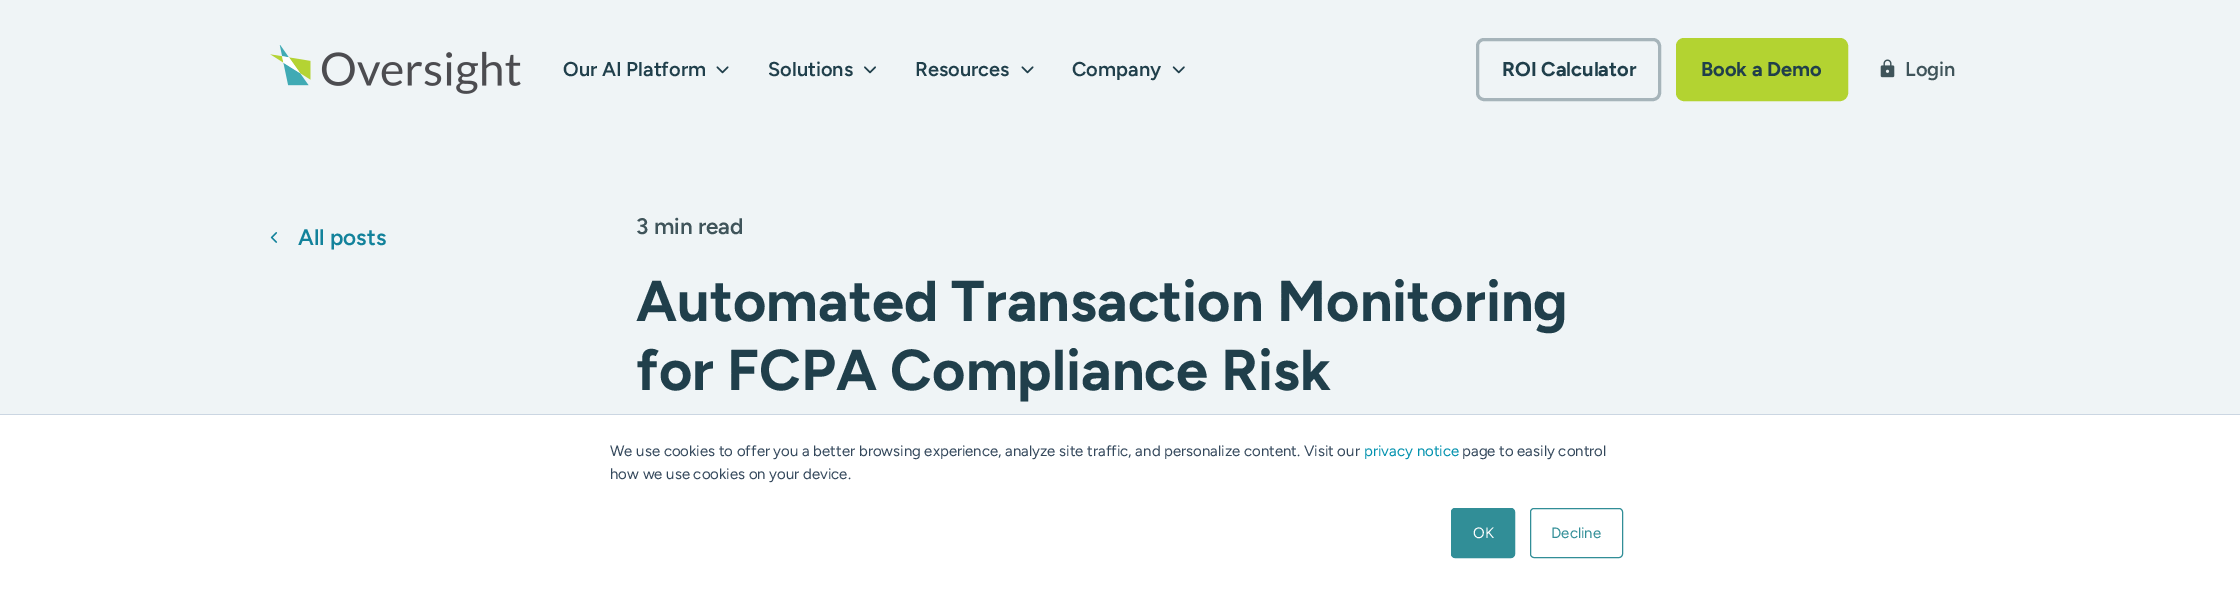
%!PS-Adobe-3.0
%%BoundingBox: 0 0 2240 589
%%LanguageLevel: 3
%%Pages: 1
%%EndComments
%%BeginProlog
/setink { 3 { 255 div 3 1 roll } repeat setrgbcolor } def
/usefont { [ exch dup neg 0 0 3 -1 roll 0 0 ] selectfont } def
/drawtext { setink usefont moveto show } def
/fillbox { setink rectfill } def
/rrect { 5 dict begin { /r /h /w /y /x } { exch def } forall
  x r add y moveto x w add y 2 copy h add r arct x w add y h add x 1 index r arct
  x y h add x y r arct x y 2 copy exch w add exch r arct closepath end } def
/drawimage { 5 dict begin { /h /w /y /x /name } { exch def } forall
  gsave x y translate w h scale
  w h 8 [w 0 0 h 0 0] name (r) file false 3 colorimage grestore end } def
%%EndProlog
%%BeginSetup
<< /PageSize [2240 589] >> setpagedevice
%%EndSetup
%%Page: 1 1
0 589 translate 1 -1 scale
4 setmiterlimit
0 0 2240 589 239 244 246 fillbox
(assets/img1.rgb) 270 45 251 49 drawimage
(Our AI Platform) 563 76 /Figtree-SemiBold 20 32 63 75 drawtext
(assets/img2.rgb) 716 66 13 8 drawimage
(Solutions) 768 76 /Figtree-SemiBold 20 32 63 75 drawtext
(assets/img3.rgb) 864 66 12 8 drawimage
(Resources) 915 76 /Figtree-SemiBold 20 32 63 75 drawtext
(assets/img2.rgb) 1021 66 13 8 drawimage
(Company) 1072 76 /Figtree-SemiBold 20 32 63 75 drawtext
(assets/img4.rgb) 1172 66 13 8 drawimage
166 180 186 setink
3 setlinewidth
1477.5 39.5 182 60 6.5 rrect stroke
(ROI Calculator) 1502 76 /Figtree-Light 20 32 63 75 drawtext
179 211 49 setink
1677.5 39.5 169 60 6.5 rrect gsave fill grestore
stroke
(Book a Demo) 1701 76 /Figtree-Light 20 32 63 75 drawtext
(assets/img5.rgb) 1880 59 15 19 drawimage
(Login) 1905 76 /Figtree-SemiBold 20 63 84 90 drawtext
(3 min read) 636 234 /Figtree-SemiBold 22.5 63 84 90 drawtext
(assets/img6.rgb) 270 232 8 11 drawimage
(All posts) 298 245 /Figtree-SemiBold 22.5 18 130 155 drawtext
(Automated Transaction Monitoring) 636 321 /Figtree-Light 57.5 32 63 75 drawtext
(for FCPA Compliance Risk) 636 390 /Figtree-Light 57.5 32 63 75 drawtext
0 415 2240 174 255 255 255 fillbox
0 414 2240 1 203 214 226 fillbox
(We use cookies to offer you a better browsing experience, analyze site traffic, and personalize content. Visit our) 610 456 /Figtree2-Light 15 51 71 91 drawtext
(privacy notice) 1364 456 /Figtree2-Light 15 0 145 174 drawtext
(page to easily control) 1462 456 /Figtree2-Light 15 51 71 91 drawtext
(how we use cookies on your device.) 610 479 /Figtree2-Light 15 51 71 91 drawtext
49 142 151 setink
1451.5 508.5 63 49 3.5 rrect gsave fill grestore
1 setlinewidth
stroke
(OK) 1473 538 /Figtree2-Light 15 255 255 255 drawtext
49 142 151 setink
1530.5 508.5 92 49 3.5 rrect stroke
(Decline) 1551 538 /Figtree2-Light 15 49 142 151 drawtext
showpage
%%EOF
